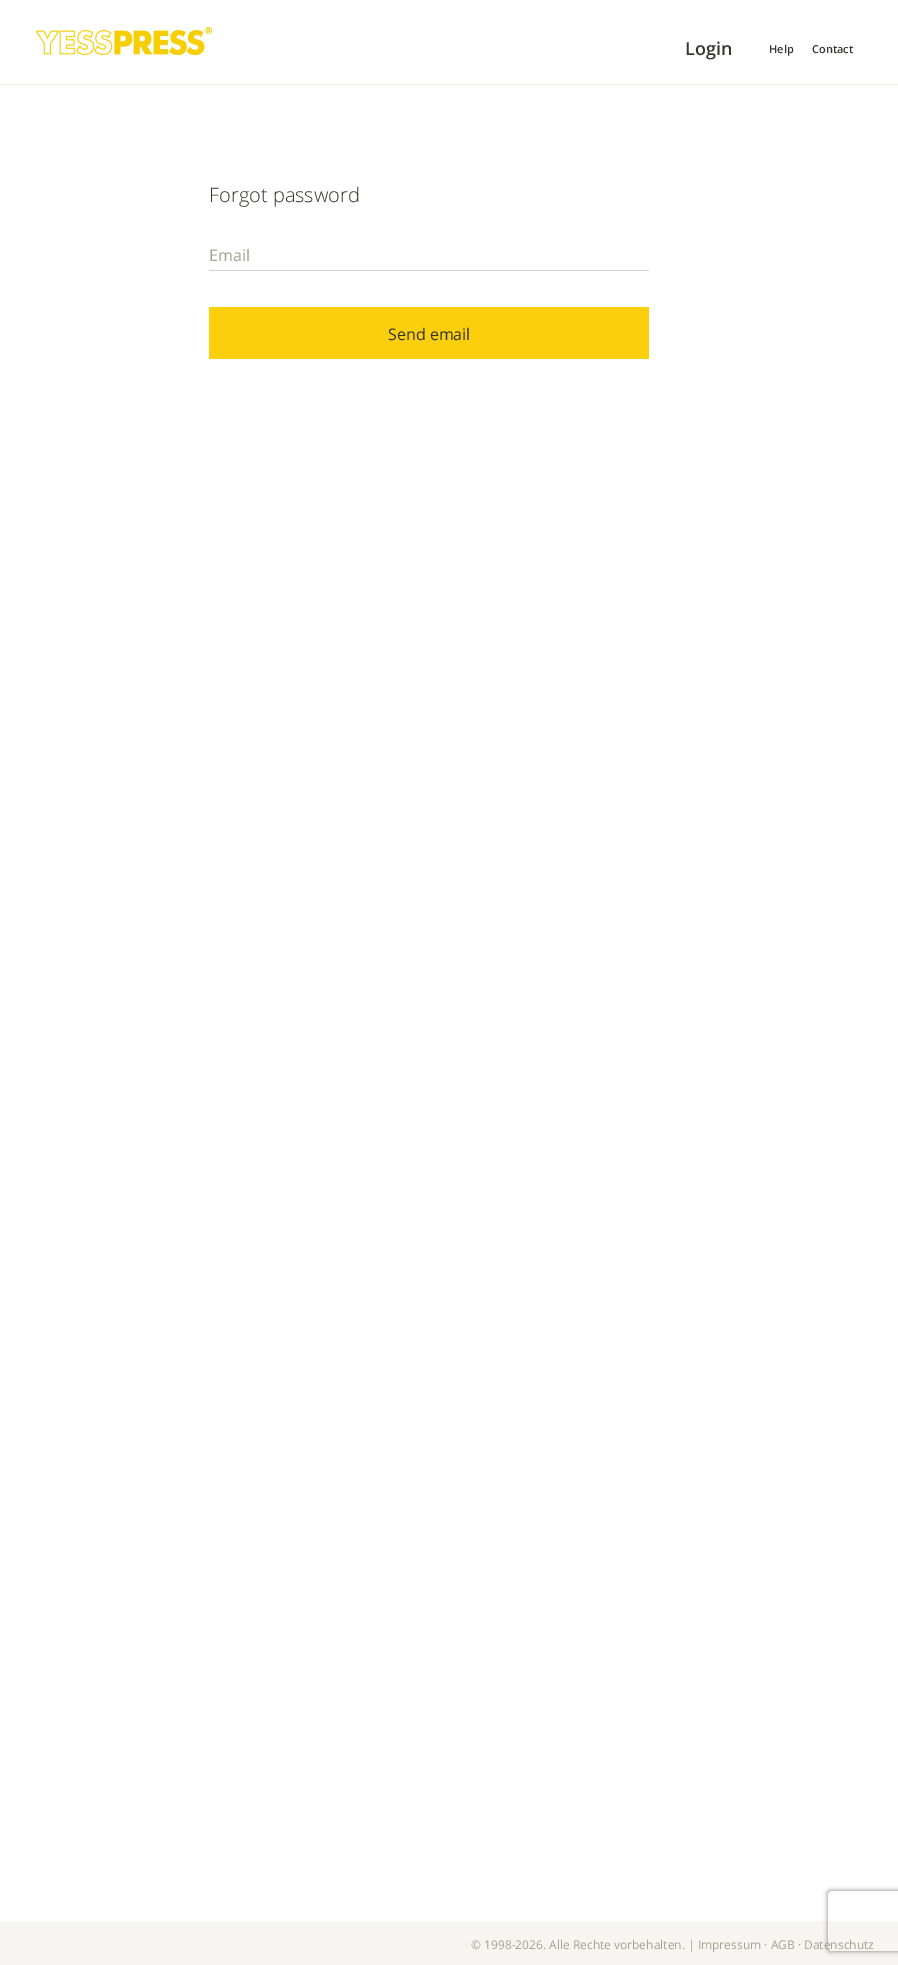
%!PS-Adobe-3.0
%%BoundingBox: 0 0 898 1965
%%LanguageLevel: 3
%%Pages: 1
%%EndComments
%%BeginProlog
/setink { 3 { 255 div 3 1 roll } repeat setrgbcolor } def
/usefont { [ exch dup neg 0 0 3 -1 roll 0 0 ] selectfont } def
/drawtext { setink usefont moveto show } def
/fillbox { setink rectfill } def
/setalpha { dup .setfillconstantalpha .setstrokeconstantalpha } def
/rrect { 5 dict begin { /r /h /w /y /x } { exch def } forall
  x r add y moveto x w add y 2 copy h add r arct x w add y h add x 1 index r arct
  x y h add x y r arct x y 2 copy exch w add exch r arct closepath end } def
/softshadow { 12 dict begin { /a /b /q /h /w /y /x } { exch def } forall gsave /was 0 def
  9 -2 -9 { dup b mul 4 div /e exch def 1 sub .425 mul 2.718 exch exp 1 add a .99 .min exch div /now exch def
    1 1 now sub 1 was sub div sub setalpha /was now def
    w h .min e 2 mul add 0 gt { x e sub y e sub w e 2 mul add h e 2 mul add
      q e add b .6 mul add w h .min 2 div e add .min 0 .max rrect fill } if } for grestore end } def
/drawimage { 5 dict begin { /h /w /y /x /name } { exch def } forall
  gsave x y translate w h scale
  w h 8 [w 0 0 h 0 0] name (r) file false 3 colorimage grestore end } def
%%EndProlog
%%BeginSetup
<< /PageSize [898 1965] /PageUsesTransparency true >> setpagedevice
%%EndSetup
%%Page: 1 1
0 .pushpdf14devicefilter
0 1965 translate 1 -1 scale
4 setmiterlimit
0 0 898 1965 255 255 255 fillbox
0 84 898 1 238 237 232 fillbox
(assets/img1.rgb) 36 27 176 28 drawimage
(Login) 685 55 /OpenSans-SemiBold 18 54 52 44 drawtext
(Help) 769 53 /OpenSans-SemiBold 11 54 52 44 drawtext
(Contact) 812 53 /OpenSans-SemiBold 11 54 52 44 drawtext
(Forgot password) 209 202 /OpenSans-Light 20 54 52 44 drawtext
(Email) 209 261 /OpenSans-Regular 16 165 162 145 drawtext
209 270 440 1 210 209 200 fillbox
209 307 440 52 251 207 11 fillbox
(Send email) 388 340 /OpenSans-Regular 16 54 52 44 drawtext
0 1921 898 44 246 245 242 fillbox
gsave
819 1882 moveto 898 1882 lineto 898 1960 lineto 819 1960 lineto closepath 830 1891 moveto 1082 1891 lineto 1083 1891 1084 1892 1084 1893 curveto 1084 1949 lineto 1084 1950 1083 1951 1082 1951 curveto 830 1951 lineto 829 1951 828 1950 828 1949 curveto 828 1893 lineto 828 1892 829 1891 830 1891 curveto closepath eoclip newpath
128 128 128 setink
828 1891 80 60 2 2.5 1 softshadow
grestore
(© 1998-2026. Alle Rechte vorbehalten. | Impressum · AGB · Datenschutz) 471 1949 /OpenSans-Regular 12 165 162 145 drawtext
.poppdf14devicefilter showpage
%%EOF
